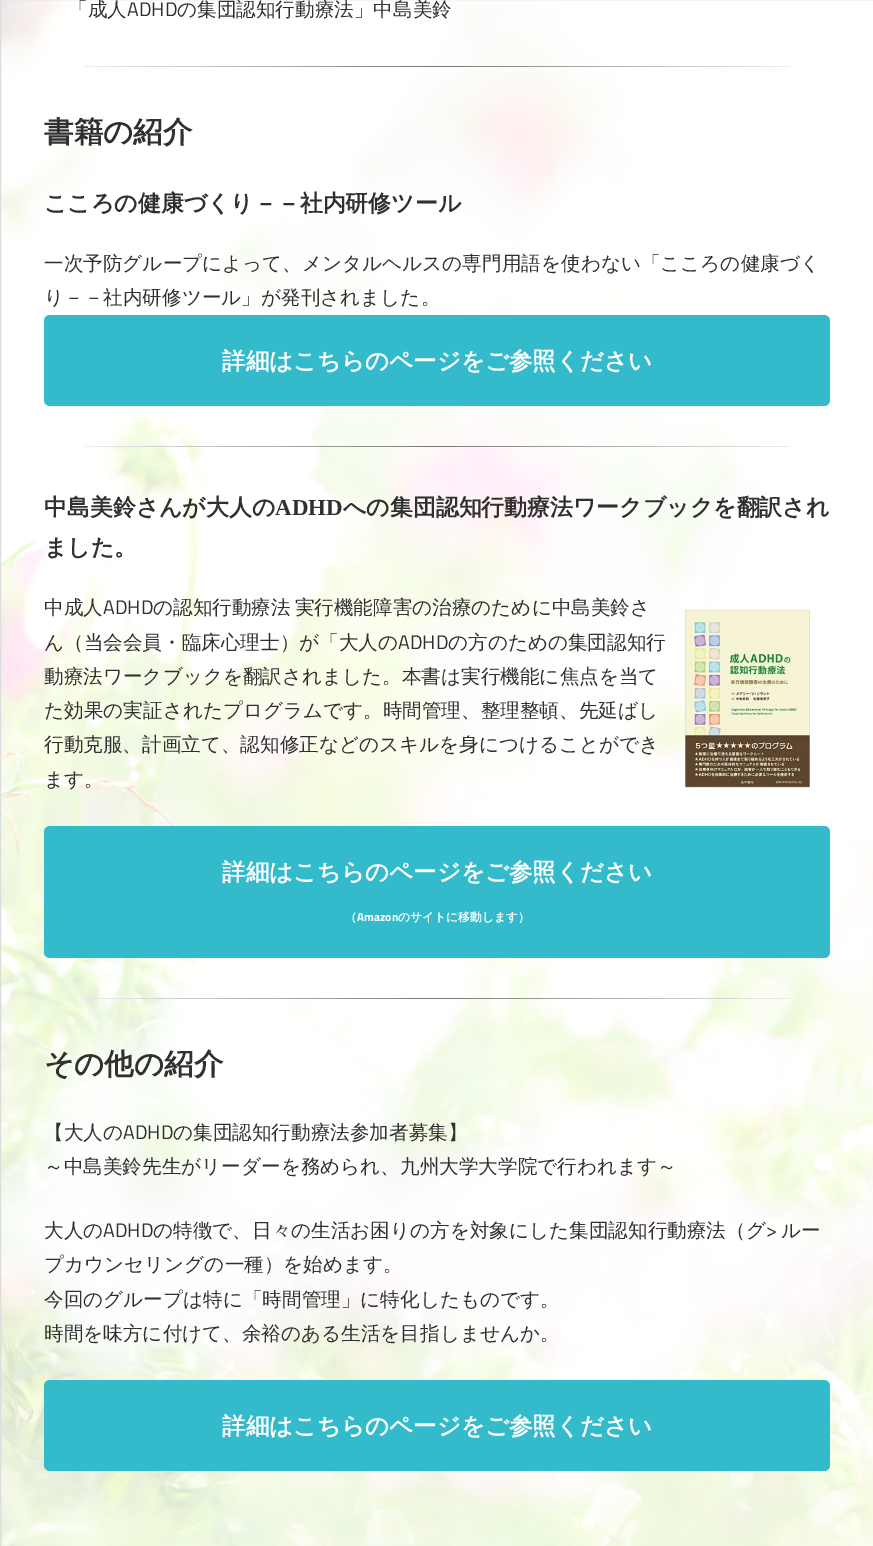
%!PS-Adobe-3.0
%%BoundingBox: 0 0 873 1546
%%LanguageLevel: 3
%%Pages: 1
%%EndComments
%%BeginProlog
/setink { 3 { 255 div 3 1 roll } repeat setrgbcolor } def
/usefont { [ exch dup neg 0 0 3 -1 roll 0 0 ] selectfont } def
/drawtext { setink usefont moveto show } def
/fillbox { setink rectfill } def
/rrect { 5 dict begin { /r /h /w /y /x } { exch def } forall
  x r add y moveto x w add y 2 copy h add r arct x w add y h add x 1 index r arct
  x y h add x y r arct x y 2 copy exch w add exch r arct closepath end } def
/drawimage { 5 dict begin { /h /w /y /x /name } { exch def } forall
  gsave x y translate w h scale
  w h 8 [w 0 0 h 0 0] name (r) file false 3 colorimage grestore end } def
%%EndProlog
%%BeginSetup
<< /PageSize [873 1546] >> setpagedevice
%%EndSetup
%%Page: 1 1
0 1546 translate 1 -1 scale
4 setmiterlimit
0 0 873 1546 255 255 255 fillbox
(assets/img1.rgb) 1 0 872 1546 drawimage
221 221 221 setink
0.5 -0.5 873 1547 rectstroke
(「成人) 68 16 /WenQuanYiZenHei-Medium 19.6 48 48 48 drawtext
(ADHD) 127 16 /TitilliumWeb-Regular 19.6 48 48 48 drawtext
(の集団認知行動療法」中島美鈴) 177 16 /WenQuanYiZenHei-Medium 19.6 48 48 48 drawtext
gsave 84 66 moveto 790 66 lineto 790 67 lineto 84 67 lineto closepath clip newpath
<< /ShadingType 2 /ColorSpace /DeviceRGB /Coords [84 67 790 67] /Extend [true true] /Function << /FunctionType 3 /Domain [0 1] /Functions [<< /FunctionType 2 /Domain [0 1] /C0 [0.933 0.933 0.933] /C1 [0.467 0.467 0.467] /N 1 >> << /FunctionType 2 /Domain [0 1] /C0 [0.467 0.467 0.467] /C1 [0.933 0.933 0.933] /N 1 >>] /Bounds [0.5] /Encode [0 1 0 1] >> >> shfill grestore
(書籍の紹介) 44 142 /WenQuanYiZenHei-Bold 29.5 48 48 48 drawtext
(こころの健康づくり－－社内研修ツール) 44 211 /WenQuanYiZenHei-Bold 22.9 48 48 48 drawtext
(一次予防グループによって、メンタルヘルスの専門用語を使わない「こころの健康づく) 44 270 /WenQuanYiZenHei-Medium 19.6 48 48 48 drawtext
(り－－社内研修ツール」が発刊されました。) 44 304 /WenQuanYiZenHei-Medium 19.6 48 48 48 drawtext
51 187 204 setink
44 315 786 91 6 rrect fill
(詳細はこちらのページをご参照ください) 222 369 /WenQuanYiZenHei-Bold 23.5 255 255 255 drawtext
gsave 84 446 moveto 790 446 lineto 790 447 lineto 84 447 lineto closepath clip newpath
<< /ShadingType 2 /ColorSpace /DeviceRGB /Coords [84 447 790 447] /Extend [true true] /Function << /FunctionType 3 /Domain [0 1] /Functions [<< /FunctionType 2 /Domain [0 1] /C0 [0.933 0.933 0.933] /C1 [0.467 0.467 0.467] /N 1 >> << /FunctionType 2 /Domain [0 1] /C0 [0.467 0.467 0.467] /C1 [0.933 0.933 0.933] /N 1 >>] /Bounds [0.5] /Encode [0 1 0 1] >> >> shfill grestore
(中島美鈴さんが大人の) 44 515 /WenQuanYiZenHei-Bold 22.9 48 48 48 drawtext
(ADHD) 275 515 /LiberationSerif-Bold 22.9 48 48 48 drawtext
(への集団認知行動療法ワークブックを翻訳され) 343 515 /WenQuanYiZenHei-Bold 22.9 48 48 48 drawtext
(ました。) 44 555 /WenQuanYiZenHei-Bold 22.9 48 48 48 drawtext
(中成人) 44 614 /WenQuanYiZenHei-Medium 19.6 48 48 48 drawtext
(ADHD) 103 614 /TitilliumWeb-Regular 19.6 48 48 48 drawtext
/WenQuanYiZenHei-Medium 19.6 usefont
153 614 moveto -2 0 32 (の認知行動療法 実行機能障害の治療のために中島美鈴さ) widthshow
(ん（当会会員・臨床心理士）が「大人の) 44 649 /WenQuanYiZenHei-Medium 19.6 48 48 48 drawtext
(ADHD) 398 649 /TitilliumWeb-Regular 19.6 48 48 48 drawtext
(の方のための集団認知行) 448 649 /WenQuanYiZenHei-Medium 19.6 48 48 48 drawtext
(assets/img2.rgb) 685 609 125 179 drawimage
(動療法ワークブックを翻訳されました。本書は実行機能に焦点を当て) 44 683 /WenQuanYiZenHei-Medium 19.6 48 48 48 drawtext
(た効果の実証されたプログラムです。時間管理、整理整頓、先延ばし) 44 717 /WenQuanYiZenHei-Medium 19.6 48 48 48 drawtext
(行動克服、計画立て、認知修正などのスキルを身につけることができ) 44 751 /WenQuanYiZenHei-Medium 19.6 48 48 48 drawtext
(ます。) 44 786 /WenQuanYiZenHei-Medium 19.6 48 48 48 drawtext
51 187 204 setink
44 826 786 132 6 rrect fill
(詳細はこちらのページをご参照ください) 222 880 /WenQuanYiZenHei-Bold 23.5 255 255 255 drawtext
(（) 345 921 /WenQuanYiZenHei-Bold 11.75 255 255 255 drawtext
(Amazon) 357 921 /TitilliumWeb-Bold 11.75 255 255 255 drawtext
(のサイトに移動します）) 398 921 /WenQuanYiZenHei-Bold 11.75 255 255 255 drawtext
gsave 84 998 moveto 790 998 lineto 790 999 lineto 84 999 lineto closepath clip newpath
<< /ShadingType 2 /ColorSpace /DeviceRGB /Coords [84 998 790 998] /Extend [true true] /Function << /FunctionType 3 /Domain [0 1] /Functions [<< /FunctionType 2 /Domain [0 1] /C0 [0.933 0.933 0.933] /C1 [0.467 0.467 0.467] /N 1 >> << /FunctionType 2 /Domain [0 1] /C0 [0.467 0.467 0.467] /C1 [0.933 0.933 0.933] /N 1 >>] /Bounds [0.5] /Encode [0 1 0 1] >> >> shfill grestore
(その他の紹介) 44 1074 /WenQuanYiZenHei-Bold 29.5 48 48 48 drawtext
(【大人の) 44 1139 /WenQuanYiZenHei-Medium 19.6 48 48 48 drawtext
(ADHD) 123 1139 /TitilliumWeb-Regular 19.6 48 48 48 drawtext
(の集団認知行動療法参加者募集】) 173 1139 /WenQuanYiZenHei-Medium 19.6 48 48 48 drawtext
(～中島美鈴先生がリーダーを務められ、九州大学大学院で行われます～) 44 1173 /WenQuanYiZenHei-Medium 19.6 48 48 48 drawtext
(大人の) 44 1237 /WenQuanYiZenHei-Medium 19.6 48 48 48 drawtext
(ADHD) 103 1237 /TitilliumWeb-Regular 19.6 48 48 48 drawtext
(の特徴で、日々の生活お困りの方を対象にした集団認知行動療法（グ) 153 1237 /WenQuanYiZenHei-Medium 19.6 48 48 48 drawtext
(>) 766 1237 /TitilliumWeb-Regular 19.6 48 48 48 drawtext
(ルー) 781 1237 /WenQuanYiZenHei-Medium 19.6 48 48 48 drawtext
(プカウンセリングの一種）を始めます。) 44 1271 /WenQuanYiZenHei-Medium 19.6 48 48 48 drawtext
(今回のグループは特に「時間管理」に特化したものです。) 44 1306 /WenQuanYiZenHei-Medium 19.6 48 48 48 drawtext
(時間を味方に付けて、余裕のある生活を目指しませんか。) 44 1340 /WenQuanYiZenHei-Medium 19.6 48 48 48 drawtext
51 187 204 setink
44 1380 786 91 6 rrect fill
(詳細はこちらのページをご参照ください) 222 1434 /WenQuanYiZenHei-Bold 23.5 255 255 255 drawtext
showpage
%%EOF
